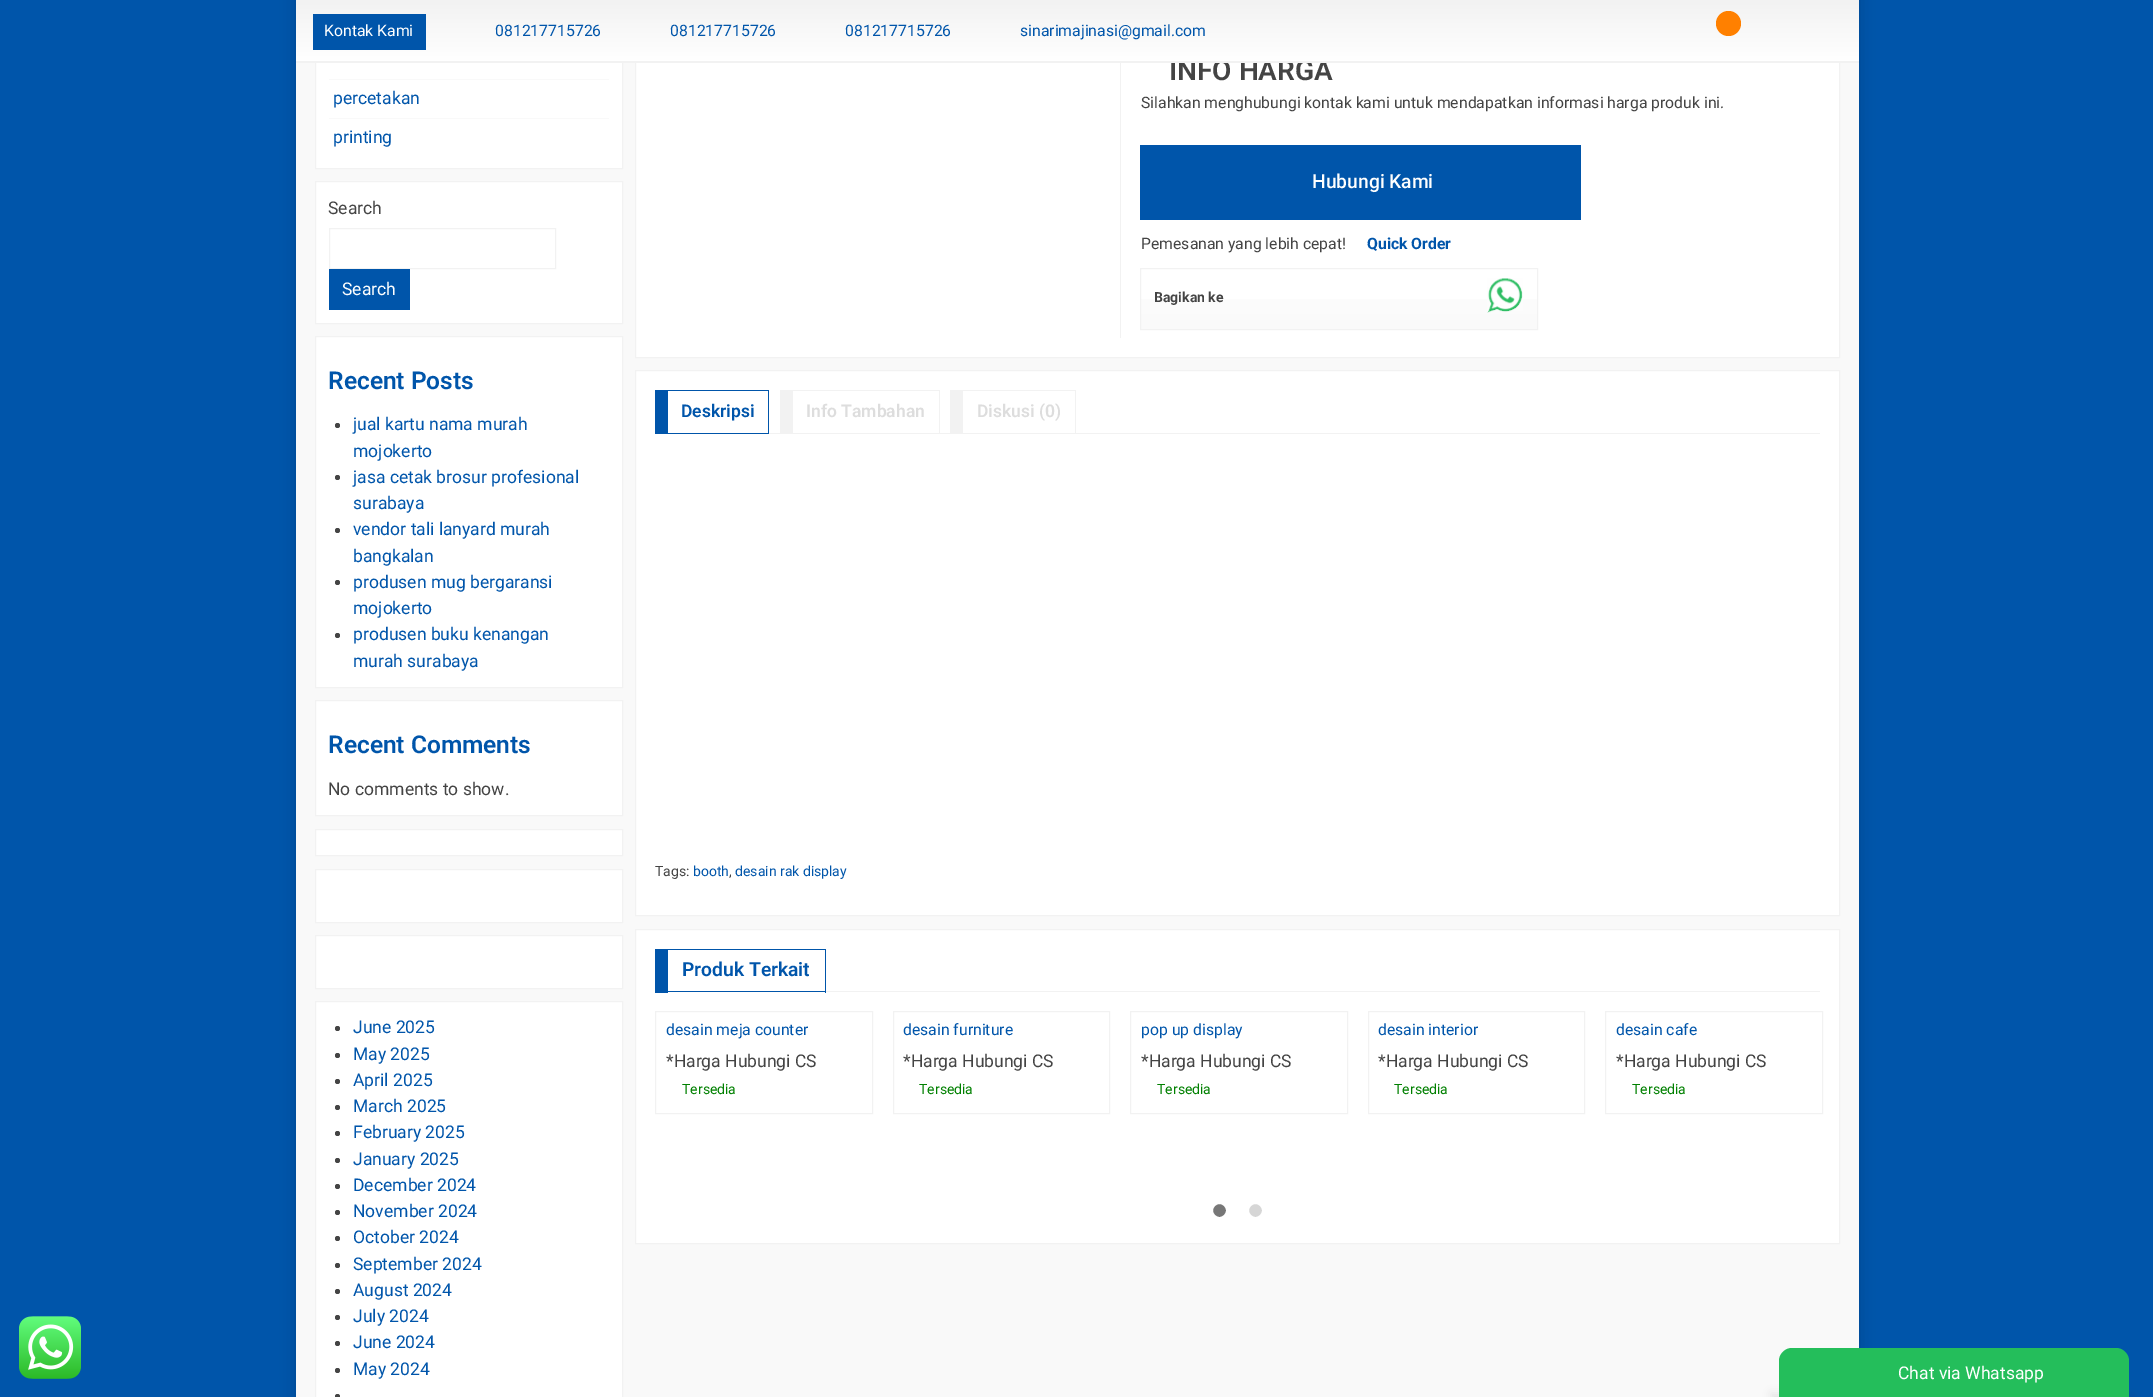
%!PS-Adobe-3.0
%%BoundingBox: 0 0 2153 1397
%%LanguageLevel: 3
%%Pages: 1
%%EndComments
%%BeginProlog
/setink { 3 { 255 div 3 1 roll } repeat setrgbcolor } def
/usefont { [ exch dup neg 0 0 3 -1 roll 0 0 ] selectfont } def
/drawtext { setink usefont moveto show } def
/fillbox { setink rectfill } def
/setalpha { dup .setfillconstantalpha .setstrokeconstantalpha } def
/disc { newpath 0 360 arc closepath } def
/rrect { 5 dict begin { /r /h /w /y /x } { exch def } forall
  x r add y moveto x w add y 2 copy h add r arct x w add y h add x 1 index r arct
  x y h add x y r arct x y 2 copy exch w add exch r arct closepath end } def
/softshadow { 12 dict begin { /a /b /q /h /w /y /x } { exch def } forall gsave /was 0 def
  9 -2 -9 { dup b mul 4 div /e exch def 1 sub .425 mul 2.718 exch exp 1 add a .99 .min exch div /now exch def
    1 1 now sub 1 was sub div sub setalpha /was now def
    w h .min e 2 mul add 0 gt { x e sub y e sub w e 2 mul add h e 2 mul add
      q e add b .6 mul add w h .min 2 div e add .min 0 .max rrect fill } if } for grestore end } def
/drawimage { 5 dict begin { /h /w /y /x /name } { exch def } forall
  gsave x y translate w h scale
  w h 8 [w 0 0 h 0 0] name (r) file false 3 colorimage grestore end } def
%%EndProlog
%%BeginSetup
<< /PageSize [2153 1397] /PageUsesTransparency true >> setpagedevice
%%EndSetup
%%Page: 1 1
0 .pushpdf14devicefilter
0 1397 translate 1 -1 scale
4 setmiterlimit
0 0 2153 1397 0 85 170 fillbox
(assets/img1.rgb) 19 1316 62 63 drawimage
0 0 0 setink
296 -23 1563 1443 0 7.5 0.15 softshadow
296 63 1563 1334 249 249 249 fillbox
316 63 306 105 255 255 255 fillbox
242 242 242 setink
315.5 -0.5 307 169 rectstroke
636 63 1203 294 255 255 255 fillbox
242 242 242 setink
635.5 -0.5 1204 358 rectstroke
(INFO HARGA) 1169 80 /Roboto-SemiBold 28 68 68 68 drawtext
gsave 296 0 moveto 1859 0 lineto 1859 61 lineto 296 61 lineto closepath clip newpath
<< /ShadingType 2 /ColorSpace /DeviceRGB /Coords [1078 0 1078 61] /Extend [true true] /Function << /FunctionType 2 /Domain [0 1] /C0 [0.949 0.949 0.949] /C1 [1 1 1] /N 1 >> >> shfill grestore
gsave 296 61 moveto 1859 61 lineto 1859 63 lineto 296 63 lineto closepath clip newpath
<< /ShadingType 2 /ColorSpace /DeviceRGB /Coords [1078 61 1078 123] /Extend [true true] /Function << /FunctionType 2 /Domain [0 1] /C0 [0.949 0.949 0.949] /C1 [1 1 1] /N 1 >> >> shfill grestore
313 14 113 36 0 85 170 fillbox
(Kontak Kami) 324 36 /Roboto-Regular 15.75 255 255 255 drawtext
(081217715726) 495 36 /Roboto-Regular 15.75 0 85 170 drawtext
(081217715726) 670 36 /Roboto-Regular 15.75 0 85 170 drawtext
(081217715726) 845 36 /Roboto-Regular 15.75 0 85 170 drawtext
(sinarimajinasi@gmail.com) 1020 36 /Roboto-Regular 15.75 0 85 170 drawtext
255 128 0 setink
1728.5 23.5 12.5 disc fill
329 79 280 1 249 249 249 fillbox
329 118 280 1 249 249 249 fillbox
(percetakan) 333 104 /Roboto-Regular 17.5 0 85 170 drawtext
(printing) 333 143 /Roboto-Regular 17.5 0 85 170 drawtext
255 255 255 setink
315.5 181.5 moveto 622.5 181.5 lineto 622.5 323.5 lineto 315.5 323.5 lineto closepath gsave fill grestore
242 242 242 setink
stroke
(Search) 328 214 /Roboto-Regular 17.5 68 68 68 drawtext
242 242 242 setink
329.5 228.5 226 40 rectstroke
329 269 81 41 0 85 170 fillbox
(Search) 342 295 /Roboto-Regular 17.5 255 255 255 drawtext
315.5 336.5 moveto 622.5 336.5 lineto 622.5 687.5 lineto 315.5 687.5 lineto closepath gsave fill grestore
242 242 242 setink
stroke
(Recent Posts) 328 389 /Roboto-SemiBold 24.5 0 85 170 drawtext
68 68 68 setink
337.5 425.5 2.5 disc fill
(jual kartu nama murah) 353 430 /Roboto-Regular 17.5 0 85 170 drawtext
(mojokerto) 353 457 /Roboto-Regular 17.5 0 85 170 drawtext
68 68 68 setink
337.5 477.5 2.5 disc fill
(jasa cetak brosur profesional) 353 483 /Roboto-Regular 17.5 0 85 170 drawtext
(surabaya) 353 509 /Roboto-Regular 17.5 0 85 170 drawtext
68 68 68 setink
337.5 530.5 2.5 disc fill
(vendor tali lanyard murah) 353 535 /Roboto-Regular 17.5 0 85 170 drawtext
(bangkalan) 353 562 /Roboto-Regular 17.5 0 85 170 drawtext
68 68 68 setink
337.5 582.5 2.5 disc fill
(produsen mug bergaransi) 353 588 /Roboto-Regular 17.5 0 85 170 drawtext
(mojokerto) 353 614 /Roboto-Regular 17.5 0 85 170 drawtext
68 68 68 setink
337.5 635.5 2.5 disc fill
(produsen buku kenangan) 353 640 /Roboto-Regular 17.5 0 85 170 drawtext
(murah surabaya) 353 667 /Roboto-Regular 17.5 0 85 170 drawtext
255 255 255 setink
315.5 700.5 moveto 622.5 700.5 lineto 622.5 815.5 lineto 315.5 815.5 lineto closepath gsave fill grestore
242 242 242 setink
stroke
(Recent Comments) 328 753 /Roboto-SemiBold 24.5 0 85 170 drawtext
(No comments to show.) 328 795 /Roboto-Regular 17.5 68 68 68 drawtext
255 255 255 setink
315.5 829.5 moveto 622.5 829.5 lineto 622.5 855.5 lineto 315.5 855.5 lineto closepath gsave fill grestore
242 242 242 setink
stroke
255 255 255 setink
315.5 869.5 moveto 622.5 869.5 lineto 622.5 922.5 lineto 315.5 922.5 lineto closepath gsave fill grestore
242 242 242 setink
stroke
255 255 255 setink
315.5 935.5 moveto 622.5 935.5 lineto 622.5 988.5 lineto 315.5 988.5 lineto closepath gsave fill grestore
242 242 242 setink
stroke
255 255 255 setink
315.5 1001.5 moveto 622.5 1001.5 lineto 622.5 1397.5 lineto 315.5 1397.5 lineto closepath gsave fill grestore
242 242 242 setink
stroke
68 68 68 setink
337.5 1028.5 2.5 disc fill
(June 2025) 353 1033 /Roboto-Regular 17.5 0 85 170 drawtext
68 68 68 setink
337.5 1055.5 2.5 disc fill
(May 2025) 353 1060 /Roboto-Regular 17.5 0 85 170 drawtext
68 68 68 setink
337.5 1081.5 2.5 disc fill
(April 2025) 353 1086 /Roboto-Regular 17.5 0 85 170 drawtext
68 68 68 setink
337.5 1107.5 2.5 disc fill
(March 2025) 353 1112 /Roboto-Regular 17.5 0 85 170 drawtext
68 68 68 setink
337.5 1133.5 2.5 disc fill
(February 2025) 353 1138 /Roboto-Regular 17.5 0 85 170 drawtext
68 68 68 setink
337.5 1160.5 2.5 disc fill
(January 2025) 353 1165 /Roboto-Regular 17.5 0 85 170 drawtext
68 68 68 setink
337.5 1186.5 2.5 disc fill
(December 2024) 353 1191 /Roboto-Regular 17.5 0 85 170 drawtext
68 68 68 setink
337.5 1212.5 2.5 disc fill
(November 2024) 353 1217 /Roboto-Regular 17.5 0 85 170 drawtext
68 68 68 setink
337.5 1238.5 2.5 disc fill
(October 2024) 353 1243 /Roboto-Regular 17.5 0 85 170 drawtext
68 68 68 setink
337.5 1265.5 2.5 disc fill
(September 2024) 353 1270 /Roboto-Regular 17.5 0 85 170 drawtext
68 68 68 setink
337.5 1291.5 2.5 disc fill
(August 2024) 353 1296 /Roboto-Regular 17.5 0 85 170 drawtext
68 68 68 setink
337.5 1317.5 2.5 disc fill
(July 2024) 353 1322 /Roboto-Regular 17.5 0 85 170 drawtext
68 68 68 setink
337.5 1343.5 2.5 disc fill
(June 2024) 353 1348 /Roboto-Regular 17.5 0 85 170 drawtext
68 68 68 setink
337.5 1370.5 2.5 disc fill
(May 2024) 353 1375 /Roboto-Regular 17.5 0 85 170 drawtext
68 68 68 setink
337.5 1396.5 2.5 disc fill
1120 63 1 275 242 242 242 fillbox
(Silahkan menghubungi kontak kami untuk mendapatkan informasi harga produk ini.) 1141 108 /Roboto-Regular 15.75 68 68 68 drawtext
1140 145 441 75 0 85 170 fillbox
(Hubungi Kami) 1312 188 /Roboto-Medium 19.25 255 255 255 drawtext
(Pemesanan yang lebih cepat!) 1141 249 /Roboto-Regular 15.75 68 68 68 drawtext
(Quick Order) 1367 249 /Roboto-Bold 15.75 0 85 170 drawtext
gsave 1141 299 moveto 1537 299 lineto 1537 329 lineto 1141 329 lineto closepath clip newpath
<< /ShadingType 2 /ColorSpace /DeviceRGB /Coords [1339 329 1339 269] /Extend [true true] /Function << /FunctionType 2 /Domain [0 1] /C0 [0.98 0.98 0.98] /C1 [1 1 1] /N 1 >> >> shfill grestore
242 242 242 setink
1140.5 268.5 397 61 rectstroke
(Bagikan ke) 1154 302 /Roboto-Bold 14 68 68 68 drawtext
(assets/img2.rgb) 1487 278 36 35 drawimage
255 255 255 setink
635.5 370.5 moveto 1839.5 370.5 lineto 1839.5 915.5 lineto 635.5 915.5 lineto closepath gsave fill grestore
242 242 242 setink
stroke
769 433 1051 1 242 242 242 fillbox
668 390 101 1 0 85 170 fillbox
768 390 1 44 0 85 170 fillbox
668 433 101 1 0 85 170 fillbox
655 390 13 44 0 85 170 fillbox
(Deskripsi) 681 417 /Roboto-SemiBold 17.5 0 85 170 drawtext
793 390 147 1 242 242 242 fillbox
939 390 1 44 242 242 242 fillbox
780 390 13 43 242 242 242 fillbox
(Info Tambahan) 806 417 /Roboto-SemiBold 17.5 221 221 221 drawtext
963 390 113 1 242 242 242 fillbox
1075 390 1 44 242 242 242 fillbox
950 390 13 43 242 242 242 fillbox
(Diskusi \(0\)) 977 417 /Roboto-SemiBold 17.5 221 221 221 drawtext
(Tags:) 655 876 /Roboto-Regular 14 68 68 68 drawtext
(booth) 693 876 /Roboto-Regular 14 0 85 170 drawtext
(,) 729 876 /Roboto-Regular 14 68 68 68 drawtext
(desain rak display) 735 876 /Roboto-Regular 14 0 85 170 drawtext
255 255 255 setink
635.5 929.5 moveto 1839.5 929.5 lineto 1839.5 1243.5 lineto 635.5 1243.5 lineto closepath gsave fill grestore
242 242 242 setink
stroke
826 991 994 1 242 242 242 fillbox
668 949 158 1 0 85 170 fillbox
825 949 1 44 0 85 170 fillbox
668 991 158 1 0 85 170 fillbox
655 949 13 44 0 85 170 fillbox
(Produk Terkait) 682 976 /Roboto-SemiBold 19.25 0 85 170 drawtext
242 242 242 setink
655.5 1011.5 217 102 rectstroke
(desain meja counter) 666 1035 /Roboto-Regular 15.75 0 85 170 drawtext
(*Harga Hubungi CS) 666 1067 /Roboto-Regular 17.5 68 68 68 drawtext
(Tersedia) 682 1094 /Roboto-Regular 14 0 128 0 drawtext
242 242 242 setink
893.5 1011.5 216 102 rectstroke
(desain furniture) 903 1035 /Roboto-Regular 15.75 0 85 170 drawtext
(*Harga Hubungi CS) 903 1067 /Roboto-Regular 17.5 68 68 68 drawtext
(Tersedia) 919 1094 /Roboto-Regular 14 0 128 0 drawtext
242 242 242 setink
1130.5 1011.5 217 102 rectstroke
(pop up display) 1141 1035 /Roboto-Regular 15.75 0 85 170 drawtext
(*Harga Hubungi CS) 1141 1067 /Roboto-Regular 17.5 68 68 68 drawtext
(Tersedia) 1157 1094 /Roboto-Regular 14 0 128 0 drawtext
242 242 242 setink
1368.5 1011.5 216 102 rectstroke
(desain interior) 1378 1035 /Roboto-Regular 15.75 0 85 170 drawtext
(*Harga Hubungi CS) 1378 1067 /Roboto-Regular 17.5 68 68 68 drawtext
(Tersedia) 1394 1094 /Roboto-Regular 14 0 128 0 drawtext
242 242 242 setink
1605.5 1011.5 217 102 rectstroke
(desain cafe) 1616 1035 /Roboto-Regular 15.75 0 85 170 drawtext
(*Harga Hubungi CS) 1616 1067 /Roboto-Regular 17.5 68 68 68 drawtext
(Tersedia) 1632 1094 /Roboto-Regular 14 0 128 0 drawtext
119 119 119 setink
1219.5 1210.5 8 disc gsave fill grestore
255 255 255 setink
3 setlinewidth
stroke
214 214 214 setink
1255.5 1210.5 8 disc gsave fill grestore
255 255 255 setink
stroke
51 51 51 setink
1771 1393 365 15 0 4 0.09 softshadow
36 190 91 setink
1792 1348 moveto 2116 1348 lineto 2123 1348 2129 1354 2129 1361 curveto 2129 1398 lineto 1779 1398 lineto 1779 1361 lineto 1779 1354 1785 1348 1792 1348 curveto closepath fill
(Chat via Whatsapp) 1898 1379 /Roboto-Regular 17.5 255 255 255 drawtext
.poppdf14devicefilter showpage
%%EOF
